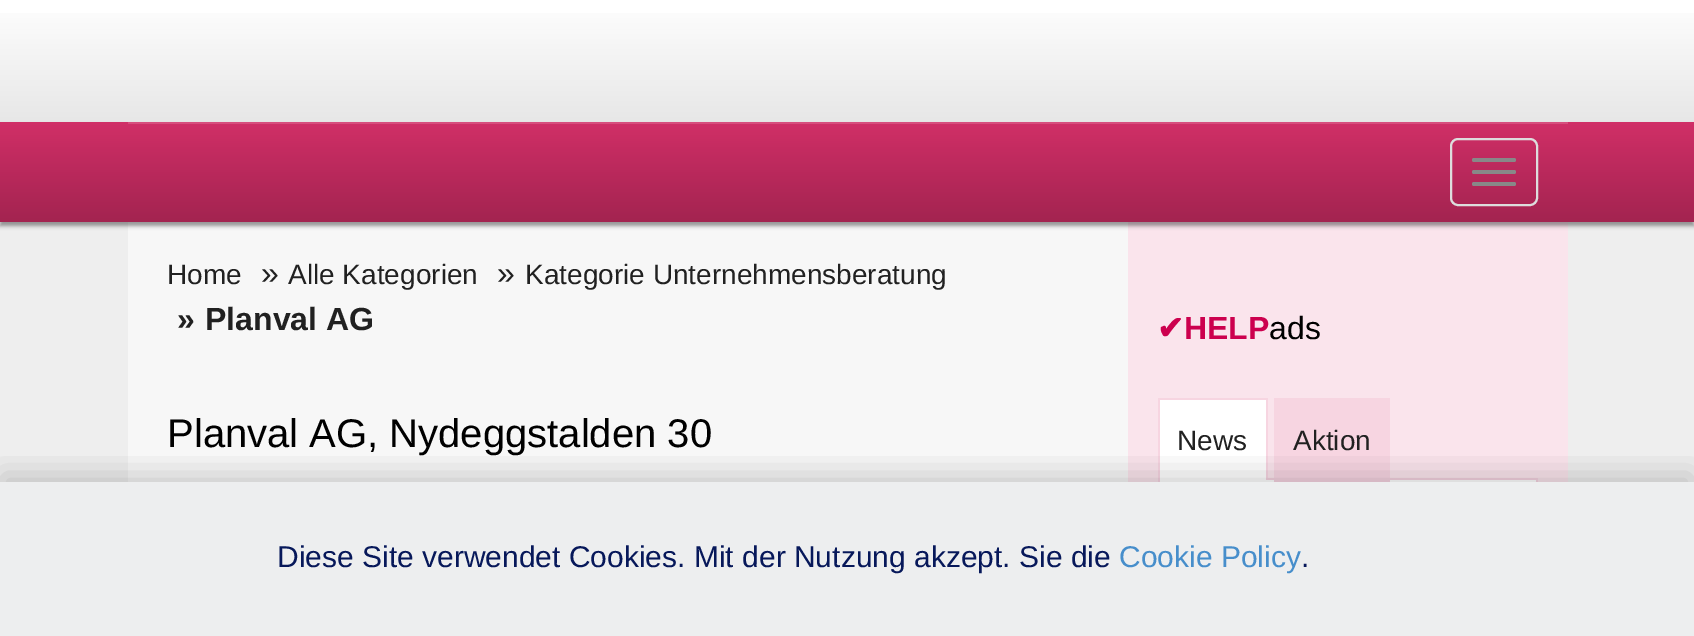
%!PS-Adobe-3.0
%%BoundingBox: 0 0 1694 636
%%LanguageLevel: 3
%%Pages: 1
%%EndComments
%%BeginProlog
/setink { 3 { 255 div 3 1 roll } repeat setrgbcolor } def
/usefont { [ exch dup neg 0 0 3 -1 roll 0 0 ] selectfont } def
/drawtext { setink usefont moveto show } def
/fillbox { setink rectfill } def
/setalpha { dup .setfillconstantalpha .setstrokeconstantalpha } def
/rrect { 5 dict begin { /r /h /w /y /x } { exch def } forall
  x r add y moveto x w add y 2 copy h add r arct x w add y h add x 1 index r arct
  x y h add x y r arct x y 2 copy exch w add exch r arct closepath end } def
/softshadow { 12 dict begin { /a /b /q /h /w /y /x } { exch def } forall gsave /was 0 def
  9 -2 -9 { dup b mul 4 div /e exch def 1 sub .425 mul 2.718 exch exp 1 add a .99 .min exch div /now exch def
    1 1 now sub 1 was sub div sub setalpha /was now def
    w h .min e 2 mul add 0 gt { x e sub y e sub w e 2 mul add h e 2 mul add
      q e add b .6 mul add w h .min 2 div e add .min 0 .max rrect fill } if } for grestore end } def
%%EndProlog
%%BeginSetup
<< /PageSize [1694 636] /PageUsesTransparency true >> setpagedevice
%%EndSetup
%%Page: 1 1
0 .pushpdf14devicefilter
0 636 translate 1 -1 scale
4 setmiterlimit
0 0 1694 636 255 255 255 fillbox
gsave 0 13 moveto 1694 13 lineto 1694 122 lineto 0 122 lineto closepath clip newpath
<< /ShadingType 2 /ColorSpace /DeviceRGB /Coords [847 0 847 122] /Extend [true true] /Function << /FunctionType 2 /Domain [0 1] /C0 [1 1 1] /C1 [0.906 0.906 0.906] /N 1 >> >> shfill grestore
0 222 1694 260 238 238 238 fillbox
128 222 1000 260 247 247 247 fillbox
1128 222 440 260 250 228 236 fillbox
0 0 0 setink
0 126 1694 100 0 2 0.39 softshadow
gsave 0 122 moveto 1694 122 lineto 1694 222 lineto 0 222 lineto closepath clip newpath
<< /ShadingType 2 /ColorSpace /DeviceRGB /Coords [847 122 847 222] /Extend [true true] /Function << /FunctionType 3 /Domain [0 1] /Functions [<< /FunctionType 2 /Domain [0 1] /C0 [0.816 0.184 0.404] /C1 [0.816 0.184 0.404] /N 1 >> << /FunctionType 2 /Domain [0 1] /C0 [0.816 0.184 0.404] /C1 [0.639 0.141 0.314] /N 1 >>] /Bounds [0.01] /Encode [0 1 0 1] >> >> shfill grestore
128 122 1440 2 215 78 126 fillbox
221 221 221 setink
2 setlinewidth
1451 139 86 66 7 rrect stroke
136 136 136 setink
1472 158 44 4 2 rrect fill
1472 170 44 4 2 rrect fill
1472 182 44 4 2 rrect fill
0 482 1694 154 237 238 239 fillbox
(Home) 167 284 /LiberationSans-Regular 28 33 33 33 drawtext
(») 261 284 /LiberationSans-Regular 32 33 33 33 drawtext
(Alle Kategorien) 288 284 /LiberationSans-Regular 28 33 33 33 drawtext
(») 497 284 /LiberationSans-Regular 32 33 33 33 drawtext
(Kategorie Unternehmensberatung) 525 284 /LiberationSans-Regular 28 33 33 33 drawtext
(») 177 330 /LiberationSans-Bold 32 33 33 33 drawtext
(Planval AG) 205 330 /LiberationSans-Bold 32 33 33 33 drawtext
(Planval AG, Nydeggstalden 30) 167 447 /LiberationSans-Regular 40 0 0 0 drawtext
(✔) 1157 339 /DejaVuSans-Bold 32 204 0 78 drawtext
(HELP) 1184 339 /LiberationSans-Bold 32 204 0 78 drawtext
(ads) 1269 339 /LiberationSans-Regular 32 0 0 0 drawtext
1268 478 270 2 247 213 225 fillbox
1160 400 106 80 255 255 255 fillbox
1158 398 110 2 247 213 225 fillbox
1266 398 2 82 247 213 225 fillbox
1158 398 2 82 247 213 225 fillbox
(News) 1177 450 /LiberationSans-Regular 28 33 33 33 drawtext
1160 480 376 2 255 255 255 fillbox
1274 398 116 84 247 213 225 fillbox
(Aktion) 1293 450 /LiberationSans-Regular 28 33 33 33 drawtext
1536 480 2 2 247 213 225 fillbox
1158 480 2 2 247 213 225 fillbox
gsave
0 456 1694 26 rectclip
0 0 0 setink
2 474 1690 150 0 15 0.18 softshadow
grestore
(Diese Site verwendet Cookies. Mit der Nutzung akzept. Sie die) 277 567 /LiberationSans-Regular 30 7 24 90 drawtext
(Cookie Policy) 1119 567 /LiberationSans-Regular 30 71 142 203 drawtext
(.) 1301 567 /LiberationSans-Regular 30 7 24 90 drawtext
.poppdf14devicefilter showpage
%%EOF
